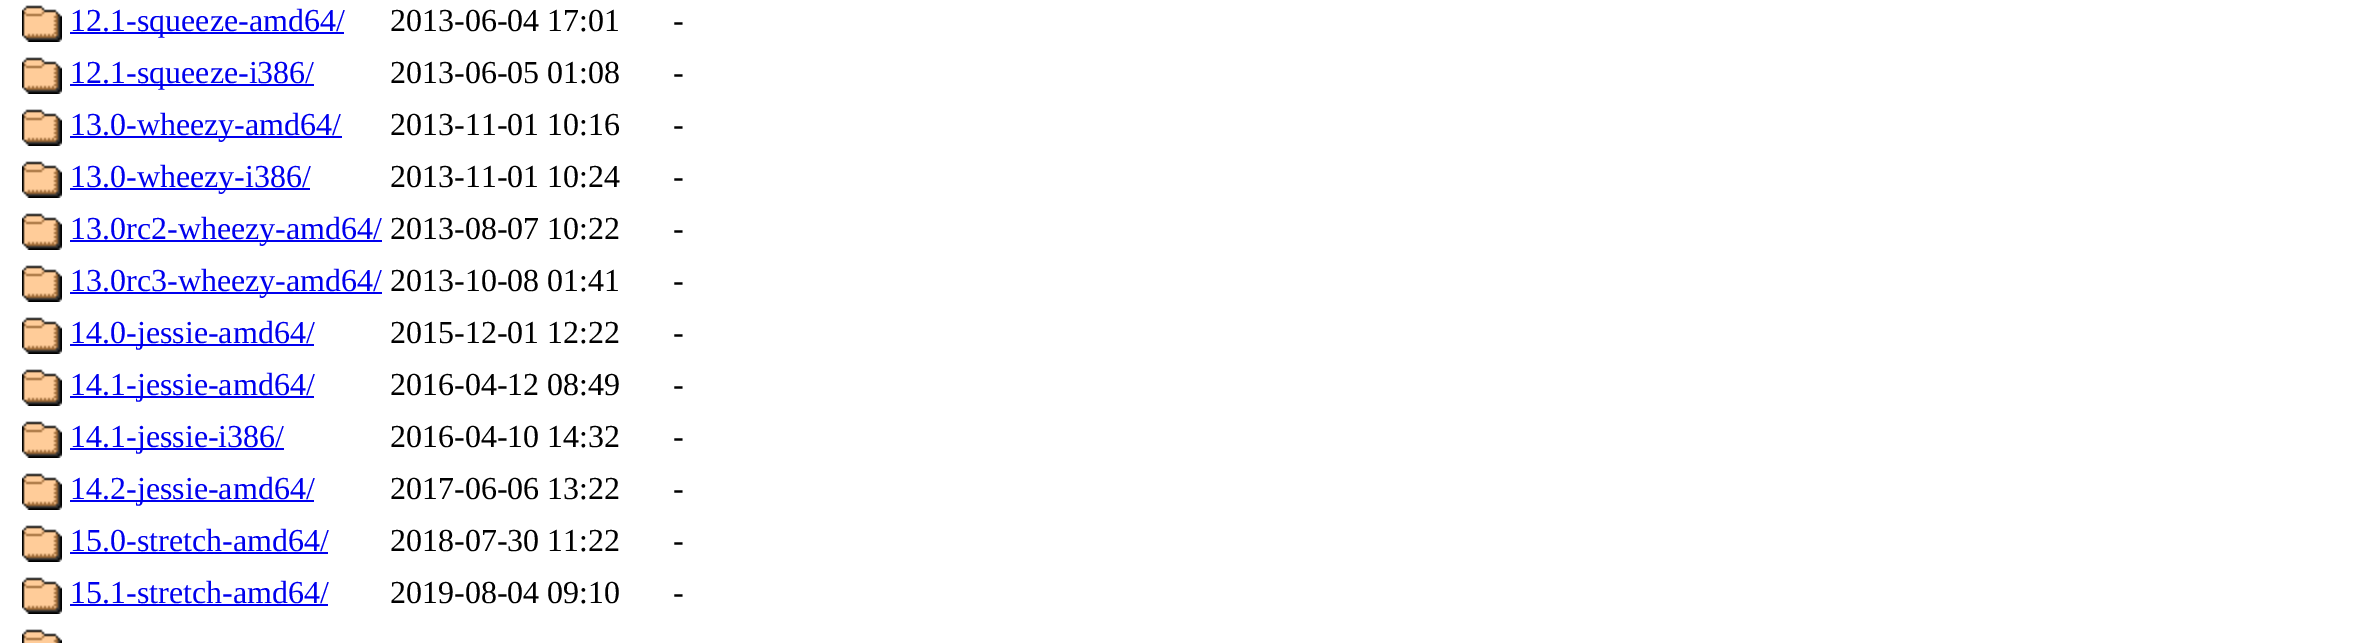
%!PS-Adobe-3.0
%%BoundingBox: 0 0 2356 643
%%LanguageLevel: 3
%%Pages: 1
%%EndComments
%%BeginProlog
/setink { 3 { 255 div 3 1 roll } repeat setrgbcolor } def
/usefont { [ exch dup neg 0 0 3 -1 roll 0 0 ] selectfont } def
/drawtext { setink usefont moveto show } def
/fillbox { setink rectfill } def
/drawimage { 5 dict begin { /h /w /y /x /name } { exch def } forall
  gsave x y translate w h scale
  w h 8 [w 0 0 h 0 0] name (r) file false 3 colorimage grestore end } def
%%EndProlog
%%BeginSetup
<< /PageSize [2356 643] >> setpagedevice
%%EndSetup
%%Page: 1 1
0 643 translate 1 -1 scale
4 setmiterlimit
0 0 2356 643 255 255 255 fillbox
(assets/img1.rgb) 22 5 40 37 drawimage
70 32 274 2 0 0 238 fillbox
(12.1-squeeze-amd64/) 70 31 /LiberationSerif-Regular 32 0 0 238 drawtext
(2013-06-04 17:01) 390 31 /LiberationSerif-Regular 32 0 0 0 drawtext
(-) 673 31 /LiberationSerif-Regular 32 0 0 0 drawtext
(assets/img1.rgb) 22 57 40 37 drawimage
70 84 244 2 0 0 238 fillbox
(12.1-squeeze-i386/) 70 83 /LiberationSerif-Regular 32 0 0 238 drawtext
(2013-06-05 01:08) 390 83 /LiberationSerif-Regular 32 0 0 0 drawtext
(-) 673 83 /LiberationSerif-Regular 32 0 0 0 drawtext
(assets/img1.rgb) 22 109 40 37 drawimage
70 136 272 2 0 0 238 fillbox
(13.0-wheezy-amd64/) 70 135 /LiberationSerif-Regular 32 0 0 238 drawtext
(2013-11-01 10:16) 390 135 /LiberationSerif-Regular 32 0 0 0 drawtext
(-) 673 135 /LiberationSerif-Regular 32 0 0 0 drawtext
(assets/img1.rgb) 22 161 40 37 drawimage
70 188 240 2 0 0 238 fillbox
(13.0-wheezy-i386/) 70 187 /LiberationSerif-Regular 32 0 0 238 drawtext
(2013-11-01 10:24) 390 187 /LiberationSerif-Regular 32 0 0 0 drawtext
(-) 673 187 /LiberationSerif-Regular 32 0 0 0 drawtext
(assets/img1.rgb) 22 213 40 37 drawimage
70 240 312 2 0 0 238 fillbox
(13.0rc2-wheezy-amd64/) 70 239 /LiberationSerif-Regular 32 0 0 238 drawtext
(2013-08-07 10:22) 390 239 /LiberationSerif-Regular 32 0 0 0 drawtext
(-) 673 239 /LiberationSerif-Regular 32 0 0 0 drawtext
(assets/img1.rgb) 22 265 40 37 drawimage
70 292 312 2 0 0 238 fillbox
(13.0rc3-wheezy-amd64/) 70 291 /LiberationSerif-Regular 32 0 0 238 drawtext
(2013-10-08 01:41) 390 291 /LiberationSerif-Regular 32 0 0 0 drawtext
(-) 673 291 /LiberationSerif-Regular 32 0 0 0 drawtext
(assets/img1.rgb) 22 317 40 37 drawimage
70 344 244 2 0 0 238 fillbox
(14.0-jessie-amd64/) 70 343 /LiberationSerif-Regular 32 0 0 238 drawtext
(2015-12-01 12:22) 390 343 /LiberationSerif-Regular 32 0 0 0 drawtext
(-) 673 343 /LiberationSerif-Regular 32 0 0 0 drawtext
(assets/img1.rgb) 22 369 40 37 drawimage
70 396 244 2 0 0 238 fillbox
(14.1-jessie-amd64/) 70 395 /LiberationSerif-Regular 32 0 0 238 drawtext
(2016-04-12 08:49) 390 395 /LiberationSerif-Regular 32 0 0 0 drawtext
(-) 673 395 /LiberationSerif-Regular 32 0 0 0 drawtext
(assets/img1.rgb) 22 421 40 37 drawimage
70 448 214 2 0 0 238 fillbox
(14.1-jessie-i386/) 70 447 /LiberationSerif-Regular 32 0 0 238 drawtext
(2016-04-10 14:32) 390 447 /LiberationSerif-Regular 32 0 0 0 drawtext
(-) 673 447 /LiberationSerif-Regular 32 0 0 0 drawtext
(assets/img1.rgb) 22 473 40 37 drawimage
70 500 244 2 0 0 238 fillbox
(14.2-jessie-amd64/) 70 499 /LiberationSerif-Regular 32 0 0 238 drawtext
(2017-06-06 13:22) 390 499 /LiberationSerif-Regular 32 0 0 0 drawtext
(-) 673 499 /LiberationSerif-Regular 32 0 0 0 drawtext
(assets/img1.rgb) 22 525 40 37 drawimage
(15.0-stretch-amd64/) 70 551 /LiberationSerif-Regular 32 0 0 238 drawtext
70 552 258 2 0 0 238 fillbox
(2018-07-30 11:22) 390 551 /LiberationSerif-Regular 32 0 0 0 drawtext
(-) 673 551 /LiberationSerif-Regular 32 0 0 0 drawtext
(assets/img1.rgb) 22 577 40 37 drawimage
(15.1-stretch-amd64/) 70 603 /LiberationSerif-Regular 32 0 0 238 drawtext
70 604 258 2 0 0 238 fillbox
(2019-08-04 09:10) 390 603 /LiberationSerif-Regular 32 0 0 0 drawtext
(-) 673 603 /LiberationSerif-Regular 32 0 0 0 drawtext
(assets/img2.rgb) 22 629 40 14 drawimage
showpage
%%EOF
